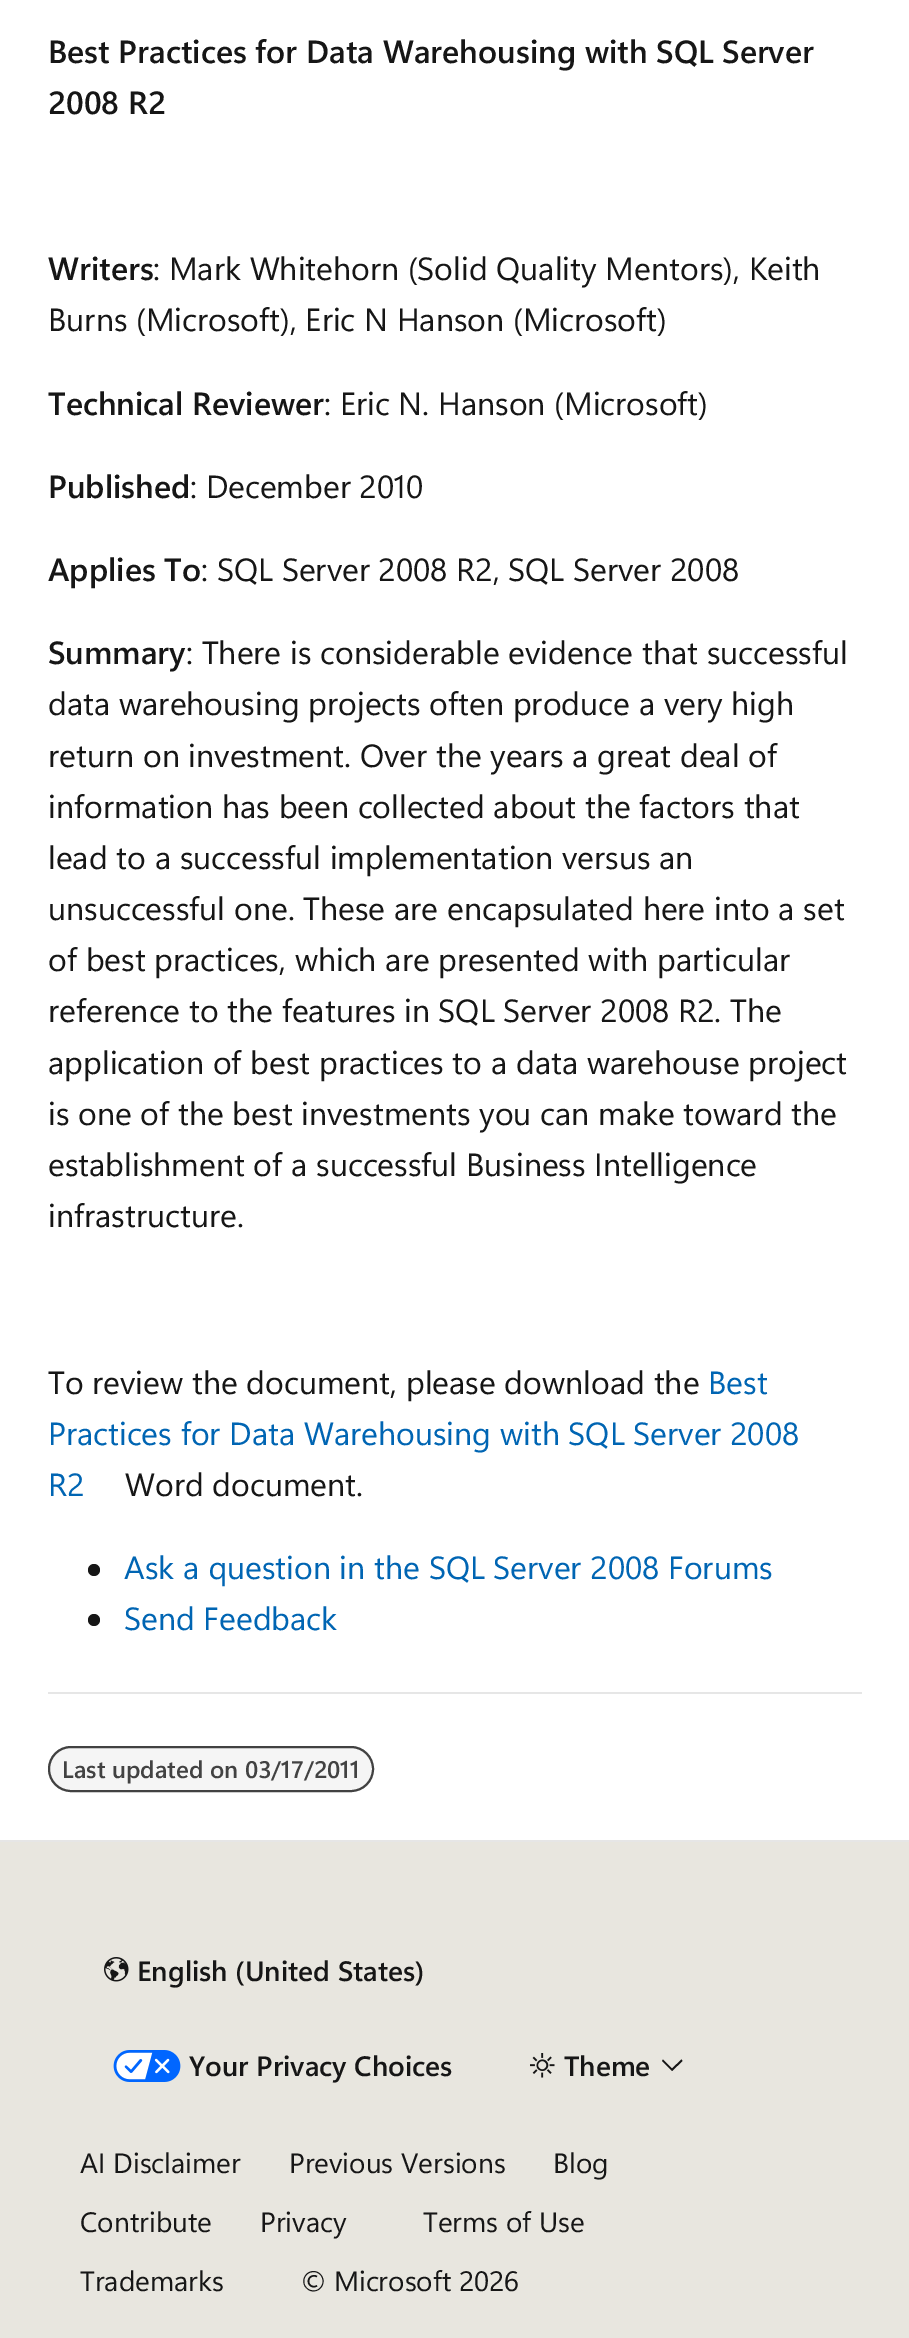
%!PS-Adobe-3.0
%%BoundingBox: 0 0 909 2338
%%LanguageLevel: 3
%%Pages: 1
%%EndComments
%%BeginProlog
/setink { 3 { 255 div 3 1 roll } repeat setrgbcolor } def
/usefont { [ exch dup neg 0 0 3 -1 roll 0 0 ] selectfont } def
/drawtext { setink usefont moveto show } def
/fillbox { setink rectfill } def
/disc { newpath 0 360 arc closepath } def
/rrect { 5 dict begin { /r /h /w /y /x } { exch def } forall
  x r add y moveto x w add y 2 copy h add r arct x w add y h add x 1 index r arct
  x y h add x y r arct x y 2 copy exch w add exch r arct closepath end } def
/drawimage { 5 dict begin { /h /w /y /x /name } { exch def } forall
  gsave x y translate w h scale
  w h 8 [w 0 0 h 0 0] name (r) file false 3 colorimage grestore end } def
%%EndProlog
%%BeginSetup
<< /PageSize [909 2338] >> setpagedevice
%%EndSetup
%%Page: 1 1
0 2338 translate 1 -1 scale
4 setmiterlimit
0 0 909 2338 255 255 255 fillbox
(Best Practices for Data Warehousing with SQL Server) 48 63 /SegoeUI-SemiBold 32 22 22 22 drawtext
(2008 R2) 48 114 /SegoeUI-SemiBold 32 22 22 22 drawtext
(Writers) 48 280 /SegoeUI-SemiBold 32 22 22 22 drawtext
(: Mark Whitehorn \(Solid Quality Mentors\), Keith) 153 280 /SegoeUI-Regular 32 22 22 22 drawtext
(Burns \(Microsoft\), Eric N Hanson \(Microsoft\)) 48 331 /SegoeUI-Regular 32 22 22 22 drawtext
(Technical Reviewer) 48 415 /SegoeUI-SemiBold 32 22 22 22 drawtext
(: Eric N. Hanson \(Microsoft\)) 324 415 /SegoeUI-Regular 32 22 22 22 drawtext
(Published) 48 498 /SegoeUI-SemiBold 32 22 22 22 drawtext
(: December 2010) 190 498 /SegoeUI-Regular 32 22 22 22 drawtext
(Applies To) 48 581 /SegoeUI-SemiBold 32 22 22 22 drawtext
(: SQL Server 2008 R2, SQL Server 2008) 201 581 /SegoeUI-Regular 32 22 22 22 drawtext
(Summary) 48 664 /SegoeUI-SemiBold 32 22 22 22 drawtext
(: There is considerable evidence that successful) 186 664 /SegoeUI-Regular 32 22 22 22 drawtext
(data warehousing projects often produce a very high) 48 715 /SegoeUI-Regular 32 22 22 22 drawtext
(return on investment. Over the years a great deal of) 48 767 /SegoeUI-Regular 32 22 22 22 drawtext
(information has been collected about the factors that) 48 818 /SegoeUI-Regular 32 22 22 22 drawtext
(lead to a successful implementation versus an) 48 869 /SegoeUI-Regular 32 22 22 22 drawtext
(unsuccessful one. These are encapsulated here into a set) 48 920 /SegoeUI-Regular 32 22 22 22 drawtext
(of best practices, which are presented with particular) 48 971 /SegoeUI-Regular 32 22 22 22 drawtext
(reference to the features in SQL Server 2008 R2. The) 48 1022 /SegoeUI-Regular 32 22 22 22 drawtext
(application of best practices to a data warehouse project) 48 1074 /SegoeUI-Regular 32 22 22 22 drawtext
(is one of the best investments you can make toward the) 48 1125 /SegoeUI-Regular 32 22 22 22 drawtext
(establishment of a successful Business Intelligence) 48 1176 /SegoeUI-Regular 32 22 22 22 drawtext
(infrastructure.) 48 1227 /SegoeUI-Regular 32 22 22 22 drawtext
(To review the document, please download the) 48 1394 /SegoeUI-Regular 32 22 22 22 drawtext
(Best) 708 1394 /SegoeUI-Regular 32 0 101 179 drawtext
(Practices for Data Warehousing with SQL Server 2008) 48 1445 /SegoeUI-Regular 32 0 101 179 drawtext
(R2) 48 1496 /SegoeUI-Regular 32 0 101 179 drawtext
(Word document.) 125 1496 /SegoeUI-Regular 32 22 22 22 drawtext
94 1570 6 disc fill
(Ask a question in the SQL Server 2008 Forums) 124 1579 /SegoeUI-Regular 32 0 101 179 drawtext
22 22 22 setink
94 1620 6 disc fill
(Send Feedback) 124 1630 /SegoeUI-Regular 32 0 101 179 drawtext
48 1692 814 2 230 230 230 fillbox
245 245 245 setink
49 1747 324 44 22 rrect gsave fill grestore
66 66 66 setink
2 setlinewidth
stroke
(Last updated on 03/17/2011) 62 1778 /SegoeUI-SemiBold 24 66 66 66 drawtext
0 1842 909 496 232 230 223 fillbox
0 1840 909 2 230 230 230 fillbox
(assets/img1.rgb) 104 1957 25 25 drawimage
(English \(United States\)) 137 1981 /SegoeUI-SemiBold 28 22 22 22 drawtext
(assets/img2.rgb) 113 2050 68 32 drawimage
(Your Privacy Choices) 189 2076 /SegoeUI-SemiBold 28 22 22 22 drawtext
(assets/img3.rgb) 530 2053 25 25 drawimage
(Theme) 564 2076 /SegoeUI-SemiBold 28 22 22 22 drawtext
672 2071 moveto 662 2061 lineto 663 2059.5 lineto 672 2068.5 lineto 681.5 2059.5 lineto 682.5 2061 lineto closepath fill
(AI Disclaimer) 80 2173 /SegoeUI-Regular 28 22 22 22 drawtext
(Previous Versions) 289 2173 /SegoeUI-Regular 28 22 22 22 drawtext
(Blog) 553 2173 /SegoeUI-Regular 28 22 22 22 drawtext
(Contribute) 80 2232 /SegoeUI-Regular 28 22 22 22 drawtext
(Privacy) 260 2232 /SegoeUI-Regular 28 22 22 22 drawtext
(Terms of Use) 423 2232 /SegoeUI-Regular 28 22 22 22 drawtext
(Trademarks) 80 2291 /SegoeUI-Regular 28 22 22 22 drawtext
(© Microsoft 2026) 301 2291 /SegoeUI-Regular 28 22 22 22 drawtext
showpage
%%EOF
